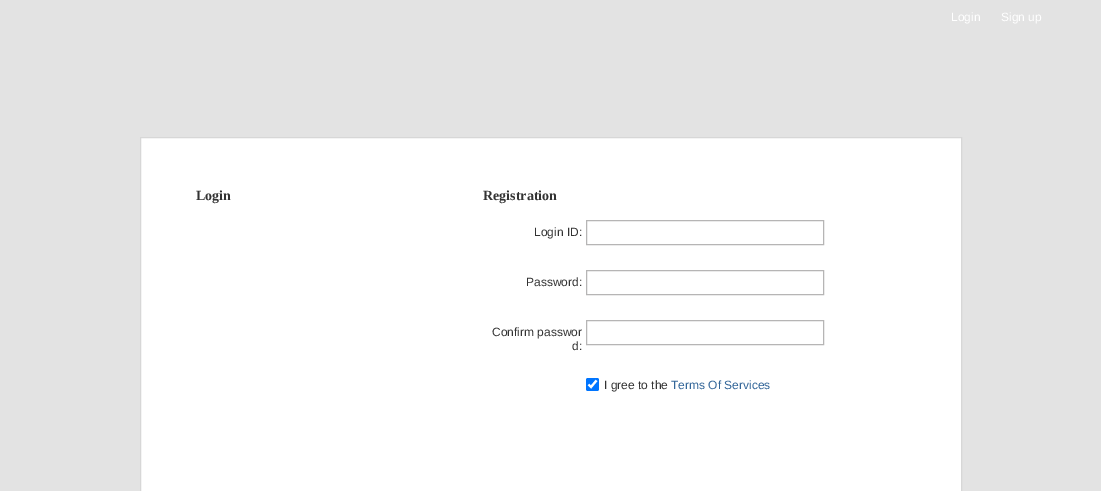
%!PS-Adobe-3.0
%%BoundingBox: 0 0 1101 491
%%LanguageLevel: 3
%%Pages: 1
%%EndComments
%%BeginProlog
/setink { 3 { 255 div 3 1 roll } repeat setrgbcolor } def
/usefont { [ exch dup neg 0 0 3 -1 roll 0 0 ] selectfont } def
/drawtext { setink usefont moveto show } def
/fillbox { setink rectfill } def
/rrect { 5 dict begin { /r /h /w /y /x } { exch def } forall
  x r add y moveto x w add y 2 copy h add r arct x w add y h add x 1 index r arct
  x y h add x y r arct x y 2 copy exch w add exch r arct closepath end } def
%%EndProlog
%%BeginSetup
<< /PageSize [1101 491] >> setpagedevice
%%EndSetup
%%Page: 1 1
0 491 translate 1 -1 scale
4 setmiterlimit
0 0 1101 491 227 227 227 fillbox
(Login) 951 21 /LiberationSans-Regular 12 255 255 255 drawtext
(Sign up) 1001 21 /LiberationSans-Regular 12 255 255 255 drawtext
140.5 137.5 moveto 961.5 137.5 lineto 961.5 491.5 lineto 140.5 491.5 lineto closepath gsave fill grestore
215 215 215 setink
stroke
(Login) 196 200 /LiberationSerif-Bold 14 51 51 51 drawtext
(Registration) 483 200 /LiberationSerif-Bold 14 51 51 51 drawtext
(Login ID:) 534 236 /LiberationSans-Regular 12 51 51 51 drawtext
182 181 181 setink
586.5 220.5 237 24 rectstroke
(Password:) 526 286 /LiberationSans-Regular 12 51 51 51 drawtext
182 181 181 setink
586.5 270.5 237 24 rectstroke
(Confirm passwor) 492 336 /LiberationSans-Regular 12 51 51 51 drawtext
(d:) 572 350 /LiberationSans-Regular 12 51 51 51 drawtext
182 181 181 setink
586.5 320.5 237 24 rectstroke
0 117 255 setink
586 378 13 13 2 rrect fill
255 255 255 setink
2.1 setlinewidth
588.5 384.5 moveto 591 387 lineto 596.5 380.5 lineto stroke
(I gree to the) 604 389 /LiberationSans-Regular 12 51 51 51 drawtext
(Terms Of Services) 671 389 /LiberationSans-Regular 12 51 102 153 drawtext
showpage
%%EOF
